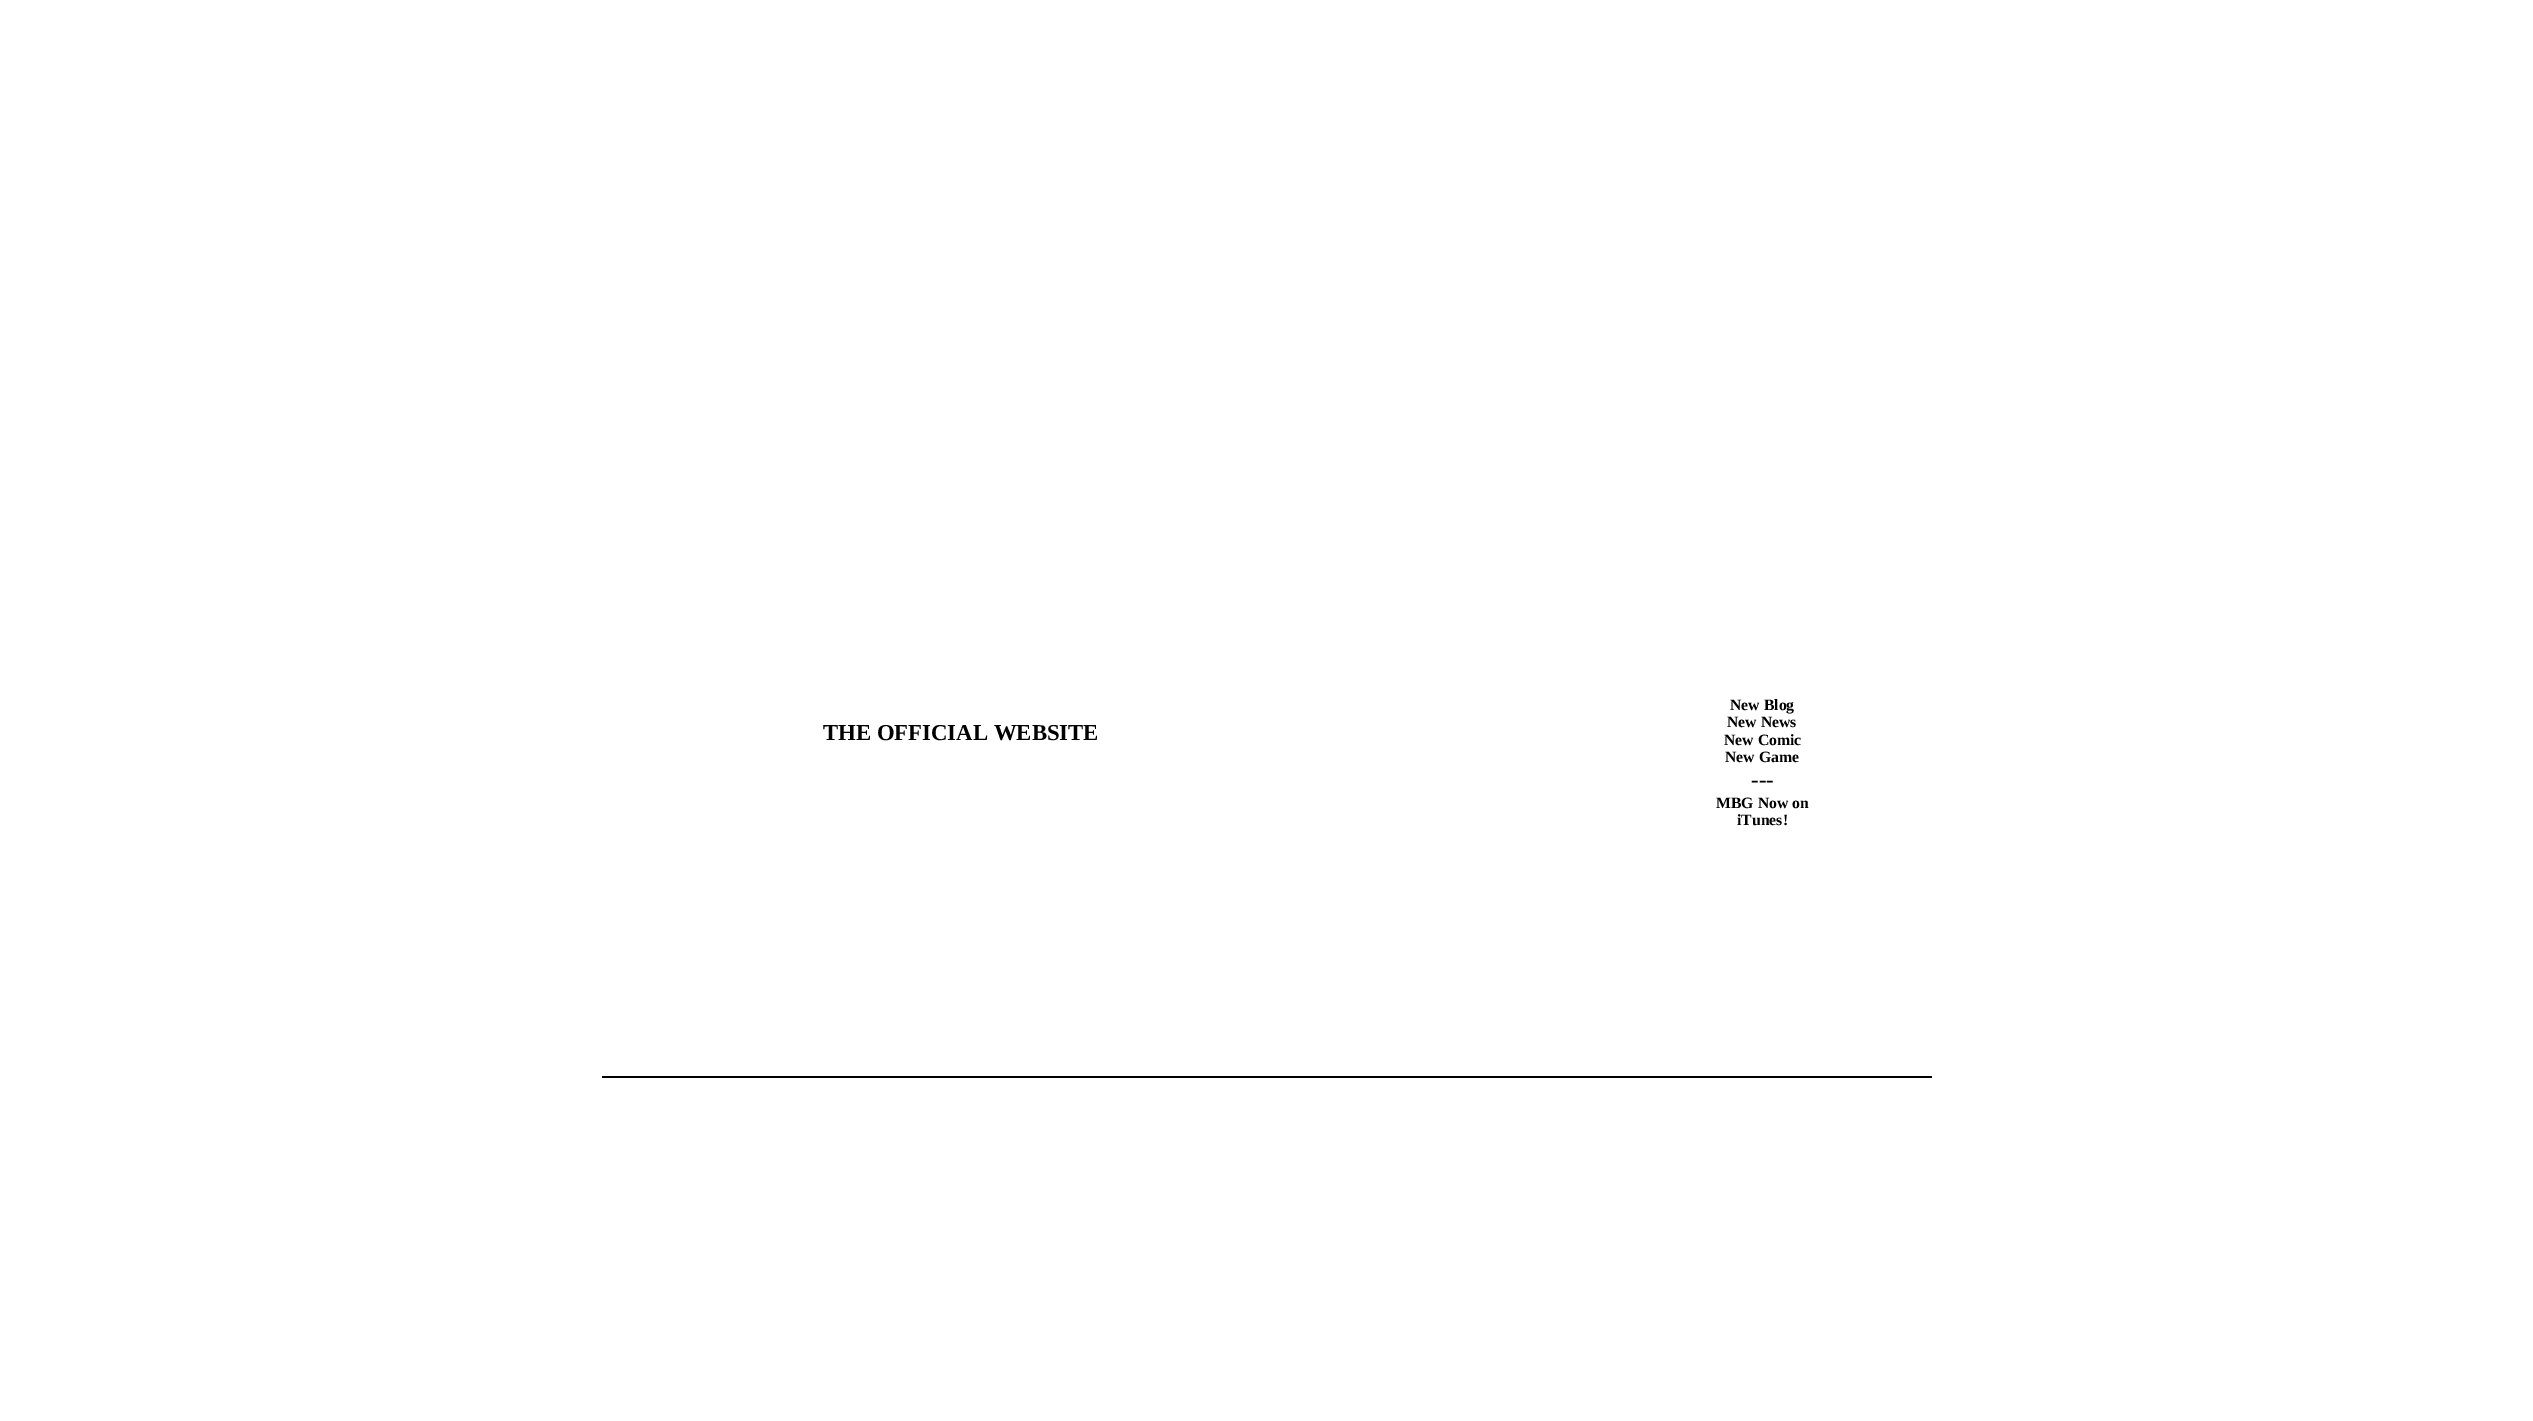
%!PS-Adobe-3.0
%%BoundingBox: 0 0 2533 1421
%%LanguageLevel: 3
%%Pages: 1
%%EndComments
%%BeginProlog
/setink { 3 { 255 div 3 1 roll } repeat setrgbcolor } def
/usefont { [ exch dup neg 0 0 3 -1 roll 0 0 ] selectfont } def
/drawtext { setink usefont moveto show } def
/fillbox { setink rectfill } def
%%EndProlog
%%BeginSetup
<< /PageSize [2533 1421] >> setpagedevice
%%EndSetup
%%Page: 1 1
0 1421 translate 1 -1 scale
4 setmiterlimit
0 0 2533 1421 255 255 255 fillbox
(THE OFFICIAL WEBSITE) 823 740 /LiberationSerif-Bold 22.75 0 0 0 drawtext
(New Blog) 1730 710 /LiberationSerif-Bold 15.75 0 0 0 drawtext
(New News) 1727 727 /LiberationSerif-Bold 15.75 0 0 0 drawtext
(New Comic) 1724 745 /LiberationSerif-Bold 15.75 0 0 0 drawtext
(New Game) 1725 762 /LiberationSerif-Bold 15.75 0 0 0 drawtext
(---) 1751 787 /LiberationSerif-Regular 22.75 0 0 0 drawtext
(MBG Now on) 1716 808 /LiberationSerif-Bold 15.75 0 0 0 drawtext
(iTunes!) 1737 825 /LiberationSerif-Bold 15.75 0 0 0 drawtext
602 1076 1330 2 0 0 0 fillbox
showpage
%%EOF
